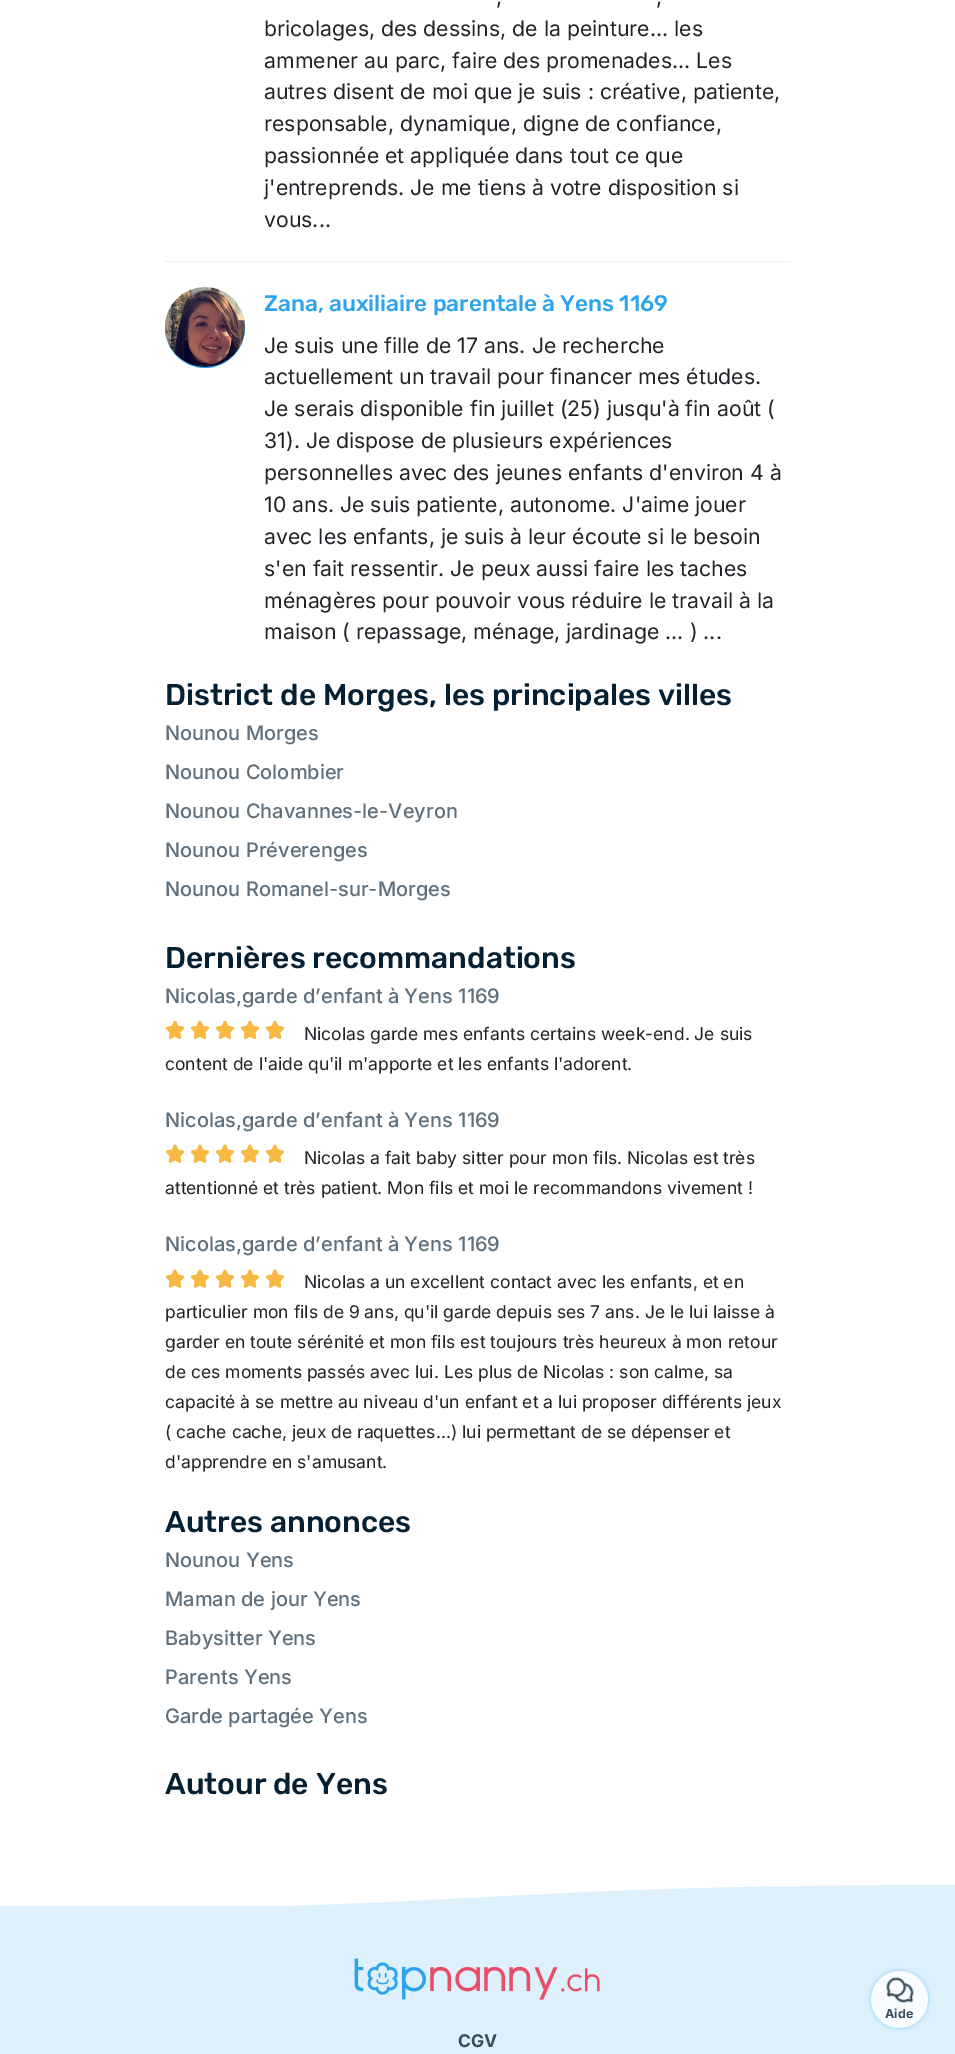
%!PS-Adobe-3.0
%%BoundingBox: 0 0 955 2054
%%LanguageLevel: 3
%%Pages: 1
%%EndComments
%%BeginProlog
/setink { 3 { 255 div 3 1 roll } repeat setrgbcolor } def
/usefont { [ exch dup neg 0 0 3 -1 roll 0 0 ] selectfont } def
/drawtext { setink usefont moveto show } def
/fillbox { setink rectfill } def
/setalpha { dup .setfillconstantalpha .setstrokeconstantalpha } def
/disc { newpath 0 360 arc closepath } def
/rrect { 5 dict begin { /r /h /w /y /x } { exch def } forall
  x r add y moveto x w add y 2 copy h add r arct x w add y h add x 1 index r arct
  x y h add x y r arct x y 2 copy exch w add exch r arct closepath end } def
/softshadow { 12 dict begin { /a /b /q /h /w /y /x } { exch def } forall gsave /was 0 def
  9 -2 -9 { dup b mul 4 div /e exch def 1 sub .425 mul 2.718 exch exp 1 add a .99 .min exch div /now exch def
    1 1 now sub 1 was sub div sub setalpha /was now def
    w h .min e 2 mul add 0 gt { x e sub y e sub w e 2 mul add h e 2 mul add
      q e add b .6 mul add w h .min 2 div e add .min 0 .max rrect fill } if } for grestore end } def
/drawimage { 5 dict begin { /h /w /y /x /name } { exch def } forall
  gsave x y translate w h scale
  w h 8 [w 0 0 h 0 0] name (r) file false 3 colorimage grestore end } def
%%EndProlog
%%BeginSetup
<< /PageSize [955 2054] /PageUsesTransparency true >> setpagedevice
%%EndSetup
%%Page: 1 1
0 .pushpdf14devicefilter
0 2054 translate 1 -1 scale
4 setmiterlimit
0 0 955 2054 255 255 255 fillbox
165 261 625 1 235 237 239 fillbox
(,) 496 4 /Inter-Regular 21.25 33 37 41 drawtext
(,) 656 4 /Inter-Regular 21.25 33 37 41 drawtext
(bricolages, des dessins, de la peinture... les) 264 36 /Inter-Regular 21.25 33 37 41 drawtext
(ammener au parc, faire des promenades... Les) 264 68 /Inter-Regular 21.25 33 37 41 drawtext
(autres disent de moi que je suis : créative, patiente,) 264 99 /Inter-Regular 21.25 33 37 41 drawtext
(responsable, dynamique, digne de confiance,) 264 131 /Inter-Regular 21.25 33 37 41 drawtext
(passionnée et appliquée dans tout ce que) 264 163 /Inter-Regular 21.25 33 37 41 drawtext
(j'entreprends. Je me tiens à votre disposition si) 264 195 /Inter-Regular 21.25 33 37 41 drawtext
(vous...) 264 227 /Inter-Regular 21.25 33 37 41 drawtext
45 163 237 setink
205 328 40 disc fill
(assets/img1.rgb) 165 287 80 80 drawimage
(Zana, auxiliaire parentale à Yens 1169) 264 311 /Rubik-Medium 22.5 45 163 237 drawtext
(Je suis une fille de 17 ans. Je recherche) 264 353 /Inter-Regular 21.25 33 37 41 drawtext
(actuellement un travail pour financer mes études.) 264 384 /Inter-Regular 21.25 33 37 41 drawtext
(Je serais disponible fin juillet \(25\) jusqu'à fin août \() 264 416 /Inter-Regular 21.25 33 37 41 drawtext
(31\). Je dispose de plusieurs expériences) 264 448 /Inter-Regular 21.25 33 37 41 drawtext
(personnelles avec des jeunes enfants d'environ 4 à) 264 480 /Inter-Regular 21.25 33 37 41 drawtext
(10 ans. Je suis patiente, autonome. J'aime jouer) 264 512 /Inter-Regular 21.25 33 37 41 drawtext
(avec les enfants, je suis à leur écoute si le besoin) 264 544 /Inter-Regular 21.25 33 37 41 drawtext
(s'en fait ressentir. Je peux aussi faire les taches) 264 576 /Inter-Regular 21.25 33 37 41 drawtext
(ménagères pour pouvoir vous réduire le travail à la) 264 608 /Inter-Regular 21.25 33 37 41 drawtext
(maison \( repassage, ménage, jardinage ... \) ...) 264 639 /Inter-Regular 21.25 33 37 41 drawtext
(District de Morges, les principales villes) 165 705 /Rubik-Medium 30 5 32 50 drawtext
(Nounou Morges) 165 740 /Inter-Medium 20 95 112 124 drawtext
(Nounou Colombier) 165 779 /Inter-Medium 20 95 112 124 drawtext
(Nounou Chavannes-le-Veyron) 165 818 /Inter-Medium 20 95 112 124 drawtext
(Nounou Préverenges) 165 857 /Inter-Medium 20 95 112 124 drawtext
(Nounou Romanel-sur-Morges) 165 896 /Inter-Medium 20 95 112 124 drawtext
(Dernières recommandations) 165 968 /Rubik-Medium 30 5 32 50 drawtext
(Nicolas,garde d’enfant à Yens 1169) 165 1003 /Inter-Medium 20 95 112 124 drawtext
(assets/img2.rgb) 165 1020 19 20 drawimage
(assets/img2.rgb) 190 1020 19 20 drawimage
(assets/img2.rgb) 215 1020 19 20 drawimage
(assets/img2.rgb) 240 1020 19 20 drawimage
(assets/img2.rgb) 265 1020 19 20 drawimage
(Nicolas garde mes enfants certains week-end. Je suis) 304 1040 /Inter-Regular 17.5 33 37 41 drawtext
(content de l'aide qu'il m'apporte et les enfants l'adorent.) 165 1070 /Inter-Regular 17.5 33 37 41 drawtext
(Nicolas,garde d’enfant à Yens 1169) 165 1127 /Inter-Medium 20 95 112 124 drawtext
(assets/img3.rgb) 165 1144 19 19 drawimage
(assets/img3.rgb) 190 1144 19 19 drawimage
(assets/img3.rgb) 215 1144 19 19 drawimage
(assets/img3.rgb) 240 1144 19 19 drawimage
(assets/img3.rgb) 265 1144 19 19 drawimage
(Nicolas a fait baby sitter pour mon fils. Nicolas est très) 304 1164 /Inter-Regular 17.5 33 37 41 drawtext
(attentionné et très patient. Mon fils et moi le recommandons vivement !) 165 1194 /Inter-Regular 17.5 33 37 41 drawtext
(Nicolas,garde d’enfant à Yens 1169) 165 1251 /Inter-Medium 20 95 112 124 drawtext
(assets/img3.rgb) 165 1269 19 19 drawimage
(assets/img3.rgb) 190 1269 19 19 drawimage
(assets/img3.rgb) 215 1269 19 19 drawimage
(assets/img3.rgb) 240 1269 19 19 drawimage
(assets/img3.rgb) 265 1269 19 19 drawimage
(Nicolas a un excellent contact avec les enfants, et en) 304 1288 /Inter-Regular 17.5 33 37 41 drawtext
(particulier mon fils de 9 ans, qu'il garde depuis ses 7 ans. Je le lui laisse à) 165 1318 /Inter-Regular 17.5 33 37 41 drawtext
(garder en toute sérénité et mon fils est toujours très heureux à mon retour) 165 1348 /Inter-Regular 17.5 33 37 41 drawtext
(de ces moments passés avec lui. Les plus de Nicolas : son calme, sa) 165 1378 /Inter-Regular 17.5 33 37 41 drawtext
(capacité à se mettre au niveau d'un enfant et a lui proposer différents jeux) 165 1408 /Inter-Regular 17.5 33 37 41 drawtext
(\( cache cache, jeux de raquettes...\) lui permettant de se dépenser et) 165 1438 /Inter-Regular 17.5 33 37 41 drawtext
(d'apprendre en s'amusant.) 165 1468 /Inter-Regular 17.5 33 37 41 drawtext
(Autres annonces) 165 1532 /Rubik-Medium 30 5 32 50 drawtext
(Nounou Yens) 165 1567 /Inter-Medium 20 95 112 124 drawtext
(Maman de jour Yens) 165 1606 /Inter-Medium 20 95 112 124 drawtext
(Babysitter Yens) 165 1645 /Inter-Medium 20 95 112 124 drawtext
(Parents Yens) 165 1684 /Inter-Medium 20 95 112 124 drawtext
(Garde partagée Yens) 165 1723 /Inter-Medium 20 95 112 124 drawtext
(Autour de Yens) 165 1794 /Rubik-Medium 30 5 32 50 drawtext
gsave
0 1885 955 21 rectclip
221 240 252 setink
955 1885 moveto 478 1885 478 1910 0 1910 curveto 955 1910 lineto fill
grestore
0 1906 955 148 221 240 252 fillbox
(assets/img4.rgb) 354 1958 246 42 drawimage
(CGV) 458 2047 /Inter-Bold 17.5 55 77 91 drawtext
gsave
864 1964 moveto 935 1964 lineto 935 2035 lineto 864 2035 lineto closepath 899.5 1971 moveto 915 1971 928 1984 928 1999.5 curveto 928 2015 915 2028 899.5 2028 curveto 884 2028 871 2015 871 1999.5 curveto 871 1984 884 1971 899.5 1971 curveto closepath eoclip newpath
45 163 237 setink
871 1971 57 57 28.5 2 0.5 softshadow
grestore
0.85 setalpha
255 255 255 setink
899.5 1999.5 28.5 disc fill
1 setalpha
(assets/img5.rgb) 886 1977 28 26 drawimage
(Aide) 885 2018 /Inter-Bold 12.5 55 77 91 drawtext
.poppdf14devicefilter showpage
%%EOF
